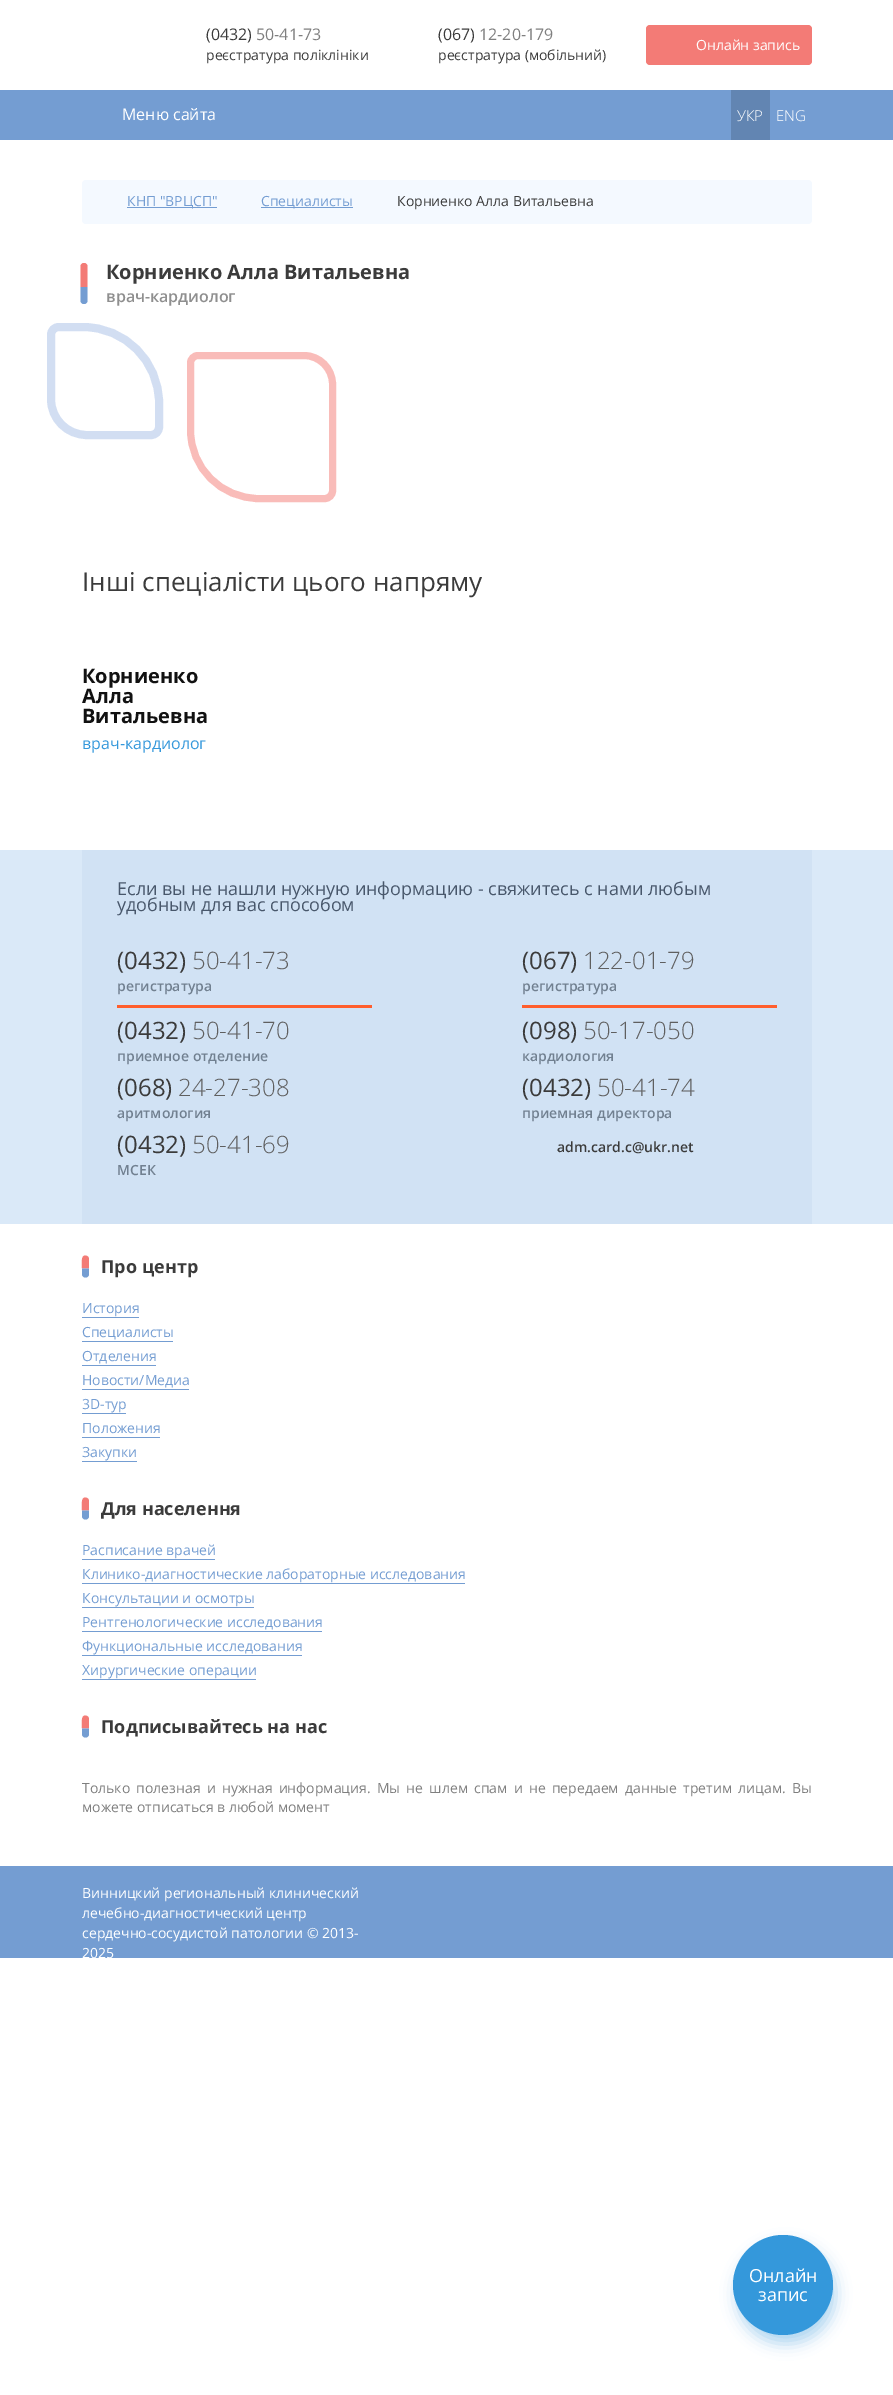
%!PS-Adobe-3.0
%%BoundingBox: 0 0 893 2395
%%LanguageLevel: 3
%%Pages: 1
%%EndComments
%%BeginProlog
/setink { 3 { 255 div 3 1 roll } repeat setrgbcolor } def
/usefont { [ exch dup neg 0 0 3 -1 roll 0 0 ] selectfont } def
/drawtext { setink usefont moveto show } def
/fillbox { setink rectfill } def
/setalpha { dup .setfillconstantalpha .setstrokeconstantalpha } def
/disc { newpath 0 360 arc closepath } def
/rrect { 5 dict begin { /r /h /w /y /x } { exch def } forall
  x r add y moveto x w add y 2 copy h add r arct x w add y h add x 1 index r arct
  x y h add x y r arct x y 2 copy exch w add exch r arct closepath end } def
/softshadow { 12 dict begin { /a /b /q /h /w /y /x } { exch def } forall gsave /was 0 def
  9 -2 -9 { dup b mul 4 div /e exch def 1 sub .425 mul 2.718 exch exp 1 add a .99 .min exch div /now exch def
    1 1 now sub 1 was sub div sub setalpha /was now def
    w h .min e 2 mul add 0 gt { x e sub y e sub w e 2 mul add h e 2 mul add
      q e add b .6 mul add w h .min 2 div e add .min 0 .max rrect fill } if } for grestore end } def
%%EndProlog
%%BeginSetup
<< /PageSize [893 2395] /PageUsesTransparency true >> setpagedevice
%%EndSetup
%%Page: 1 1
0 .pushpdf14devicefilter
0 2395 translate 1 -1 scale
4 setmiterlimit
0 0 893 2395 255 255 255 fillbox
(\(0432\)) 206 40 /OpenSans-Regular 16 59 59 59 drawtext
(50-41-73) 256 40 /OpenSans-Regular 16 127 127 127 drawtext
(реєстратура поліклініки) 206 60 /OpenSans-Regular 14 59 59 59 drawtext
(\(067\)) 438 40 /OpenSans-Regular 16 59 59 59 drawtext
(12-20-179) 479 40 /OpenSans-Regular 16 127 127 127 drawtext
(реєстратура \(мобільний\)) 438 60 /OpenSans-Regular 14 59 59 59 drawtext
243 123 118 setink
646 25 166 40 4 rrect fill
(Онлайн запись) 696 50 /OpenSans-Regular 14 255 255 255 drawtext
0 90 893 50 116 157 210 fillbox
(Меню сайта) 122 120 /OpenSans-Regular 16 255 255 255 drawtext
731 90 39 50 98 133 178 fillbox
(УКР) 737 121 /OpenSans-Light 15 255 255 255 drawtext
(ENG) 776 121 /OpenSans-Light 15 255 255 255 drawtext
244 249 255 setink
82 180 730 44 4 rrect fill
127 207 90 1 116 157 210 fillbox
(КНП "ВРЦСП") 127 206 /OpenSans-Regular 14 116 157 210 drawtext
261 207 92 1 116 157 210 fillbox
(Специалисты) 261 206 /OpenSans-Regular 14 116 157 210 drawtext
(Корниенко Алла Витальевна) 397 206 /OpenSans-Regular 14 59 59 59 drawtext
243 123 118 setink
87.5 266.5 moveto 87.5 287 lineto 80.5 287 lineto 80.5 266.5 lineto 80.5 264.5 82 263 84 263 curveto 86 263 87.5 264.5 87.5 266.5 curveto closepath fill
116 157 210 setink
87.5 287 moveto 87.5 300.5 lineto 87.5 302.5 86 304 84 304 curveto 82 304 80.5 302.5 80.5 300.5 curveto 80.5 287 lineto closepath fill
(Корниенко Алла Витальевна) 106 279 /OpenSans-Bold 20 59 59 59 drawtext
(врач-кардиолог) 106 302 /OpenSans-SemiBold 16 143 143 143 drawtext
210 222 242 setink
8 setlinewidth
59 327 moveto 83 327 lineto 125 327 159 361 159 403 curveto 159 427 lineto 159 431.5 155.5 435 151 435 curveto 87 435 lineto 67 435 51 419 51 399 curveto 51 335 lineto 51 330.5 54.5 327 59 327 curveto closepath stroke
249 188 185 setink
7 setlinewidth
198 355.5 moveto 304 355.5 lineto 319.5 355.5 332.5 368.5 332.5 384 curveto 332.5 491 lineto 332.5 495 329 498.5 325 498.5 curveto 259 498.5 lineto 221 498.5 190.5 468 190.5 430 curveto 190.5 363 lineto 190.5 359 194 355.5 198 355.5 curveto closepath stroke
(Інші спеціалісти цього напряму) 82 591 /OpenSans-Regular 26 59 59 59 drawtext
(Корниенко) 82 683 /OpenSans-Bold 20 17 17 17 drawtext
(Алла) 82 703 /OpenSans-Bold 20 17 17 17 drawtext
(Витальевна) 82 723 /OpenSans-Bold 20 17 17 17 drawtext
(врач-кардиолог) 82 749 /OpenSans-Regular 16 52 152 219 drawtext
0 850 893 374 218 233 248 fillbox
82 850 730 374 209 226 244 fillbox
(Если вы не нашли нужную информацию - свяжитесь с нами любым) 117 895 /OpenSans-Regular 18 72 87 107 drawtext
(удобным для вас способом) 117 911 /OpenSans-Regular 18 72 87 107 drawtext
117 1005 255 3 255 94 45 fillbox
(\(0432\)) 117 969 /OpenSans-Regular 24 59 59 59 drawtext
(50-41-73) 192 969 /OpenSans-Light 24 95 95 95 drawtext
(регистратура) 117 991 /OpenSans-SemiBold 14 113 128 144 drawtext
522 1005 255 3 255 94 45 fillbox
(\(067\)) 522 969 /OpenSans-Regular 24 59 59 59 drawtext
(122-01-79) 583 969 /OpenSans-Light 24 95 95 95 drawtext
(регистратура) 522 991 /OpenSans-SemiBold 14 113 128 144 drawtext
(\(0432\)) 117 1039 /OpenSans-Regular 24 59 59 59 drawtext
(50-41-70) 192 1039 /OpenSans-Light 24 95 95 95 drawtext
(приемное отделение) 117 1061 /OpenSans-SemiBold 14 113 128 144 drawtext
(\(098\)) 522 1039 /OpenSans-Regular 24 59 59 59 drawtext
(50-17-050) 583 1039 /OpenSans-Light 24 95 95 95 drawtext
(кардиология) 522 1061 /OpenSans-SemiBold 14 113 128 144 drawtext
(\(068\)) 117 1096 /OpenSans-Regular 24 59 59 59 drawtext
(24-27-308) 178 1096 /OpenSans-Light 24 95 95 95 drawtext
(аритмология) 117 1118 /OpenSans-SemiBold 14 113 128 144 drawtext
(\(0432\)) 522 1096 /OpenSans-Regular 24 59 59 59 drawtext
(50-41-74) 597 1096 /OpenSans-Light 24 95 95 95 drawtext
(приемная директора) 522 1118 /OpenSans-SemiBold 14 113 128 144 drawtext
(\(0432\)) 117 1153 /OpenSans-Regular 24 59 59 59 drawtext
(50-41-69) 192 1153 /OpenSans-Light 24 95 95 95 drawtext
(МСЕК) 117 1175 /OpenSans-SemiBold 14 113 128 144 drawtext
(adm.card.c@ukr.net) 557 1152 /OpenSans-SemiBold 14 59 59 59 drawtext
243 123 118 setink
89 1259 moveto 89 1268.5 lineto 82 1268.5 lineto 82 1266 81.5 1259.5 82.5 1257.5 curveto 83.5 1254 89 1255.5 89 1259 curveto closepath fill
116 157 210 setink
89 1268.5 moveto 89 1274 lineto 89 1276 87.5 1277.5 85.5 1277.5 curveto 83.5 1277.5 82 1276 82 1274 curveto 82 1268.5 lineto closepath fill
(Про центр) 101 1273 /OpenSans-Bold 18 59 59 59 drawtext
(История) 82 1313 /OpenSans-Regular 14 116 157 210 drawtext
82 1317 57 1 116 157 210 fillbox
(Специалисты) 82 1337 /OpenSans-Regular 14 116 157 210 drawtext
82 1341 91 1 116 157 210 fillbox
(Отделения) 82 1361 /OpenSans-Regular 14 116 157 210 drawtext
82 1365 74 1 116 157 210 fillbox
(Новости/Медиа) 82 1385 /OpenSans-Regular 14 116 157 210 drawtext
82 1389 107 1 116 157 210 fillbox
(3D-тур) 82 1409 /OpenSans-Regular 14 116 157 210 drawtext
82 1413 44 1 116 157 210 fillbox
(Положения) 82 1433 /OpenSans-Regular 14 116 157 210 drawtext
82 1437 78 1 116 157 210 fillbox
(Закупки) 82 1457 /OpenSans-Regular 14 116 157 210 drawtext
82 1461 55 1 116 157 210 fillbox
243 123 118 setink
89 1501 moveto 89 1510.5 lineto 82 1510.5 lineto 82 1508 81.5 1501.5 82.5 1499.5 curveto 83.5 1496 89 1497.5 89 1501 curveto closepath fill
116 157 210 setink
89 1510.5 moveto 89 1516 lineto 89 1518 87.5 1519.5 85.5 1519.5 curveto 83.5 1519.5 82 1518 82 1516 curveto 82 1510.5 lineto closepath fill
(Для населення) 101 1515 /OpenSans-Bold 18 59 59 59 drawtext
(Расписание врачей) 82 1555 /OpenSans-Regular 14 116 157 210 drawtext
82 1559 133 1 116 157 210 fillbox
(Клинико-диагностические лабораторные исследования) 82 1579 /OpenSans-Regular 14 116 157 210 drawtext
82 1583 383 1 116 157 210 fillbox
(Консультации и осмотры) 82 1603 /OpenSans-Regular 14 116 157 210 drawtext
82 1607 172 1 116 157 210 fillbox
(Рентгенологические исследования) 82 1627 /OpenSans-Regular 14 116 157 210 drawtext
82 1631 240 1 116 157 210 fillbox
(Функциональные исследования) 82 1651 /OpenSans-Regular 14 116 157 210 drawtext
82 1655 220 1 116 157 210 fillbox
(Хирургические операции) 82 1675 /OpenSans-Regular 14 116 157 210 drawtext
82 1679 174 1 116 157 210 fillbox
243 123 118 setink
89 1719 moveto 89 1728.5 lineto 82 1728.5 lineto 82 1726 81.5 1719.5 82.5 1717.5 curveto 83.5 1714 89 1715.5 89 1719 curveto closepath fill
116 157 210 setink
89 1728.5 moveto 89 1734 lineto 89 1736 87.5 1737.5 85.5 1737.5 curveto 83.5 1737.5 82 1736 82 1734 curveto 82 1728.5 lineto closepath fill
(Подписывайтесь на нас) 101 1733 /OpenSans-Bold 18 59 59 59 drawtext
/OpenSans-Regular 14 usefont
127 127 127 setink
82 1793 moveto 2.6 0 32 (Только полезная и нужная информация. Мы не шлем спам и не передаем данные третим лицам. Вы) widthshow
(можете отписаться в любой момент) 82 1812 /OpenSans-Regular 14 127 127 127 drawtext
0 1866 893 92 116 157 210 fillbox
(Винницкий региональный клинический) 82 1898 /OpenSans-Regular 14 255 255 255 drawtext
(лечебно-диагностический центр) 82 1918 /OpenSans-Regular 14 255 255 255 drawtext
(сердечно-сосудистой патологии © 2013-) 82 1938 /OpenSans-Regular 14 255 255 255 drawtext
(2025) 82 1958 /OpenSans-Regular 14 255 255 255 drawtext
52 151 219 setink
736 2244 100 100 50 7.5 0.39 softshadow
52 152 219 setink
783 2285 50 disc fill
(Онлайн) 749 2282 /OpenSans-Regular 18 255 255 255 drawtext
(запис) 758 2301 /OpenSans-Regular 18 255 255 255 drawtext
.poppdf14devicefilter showpage
%%EOF
